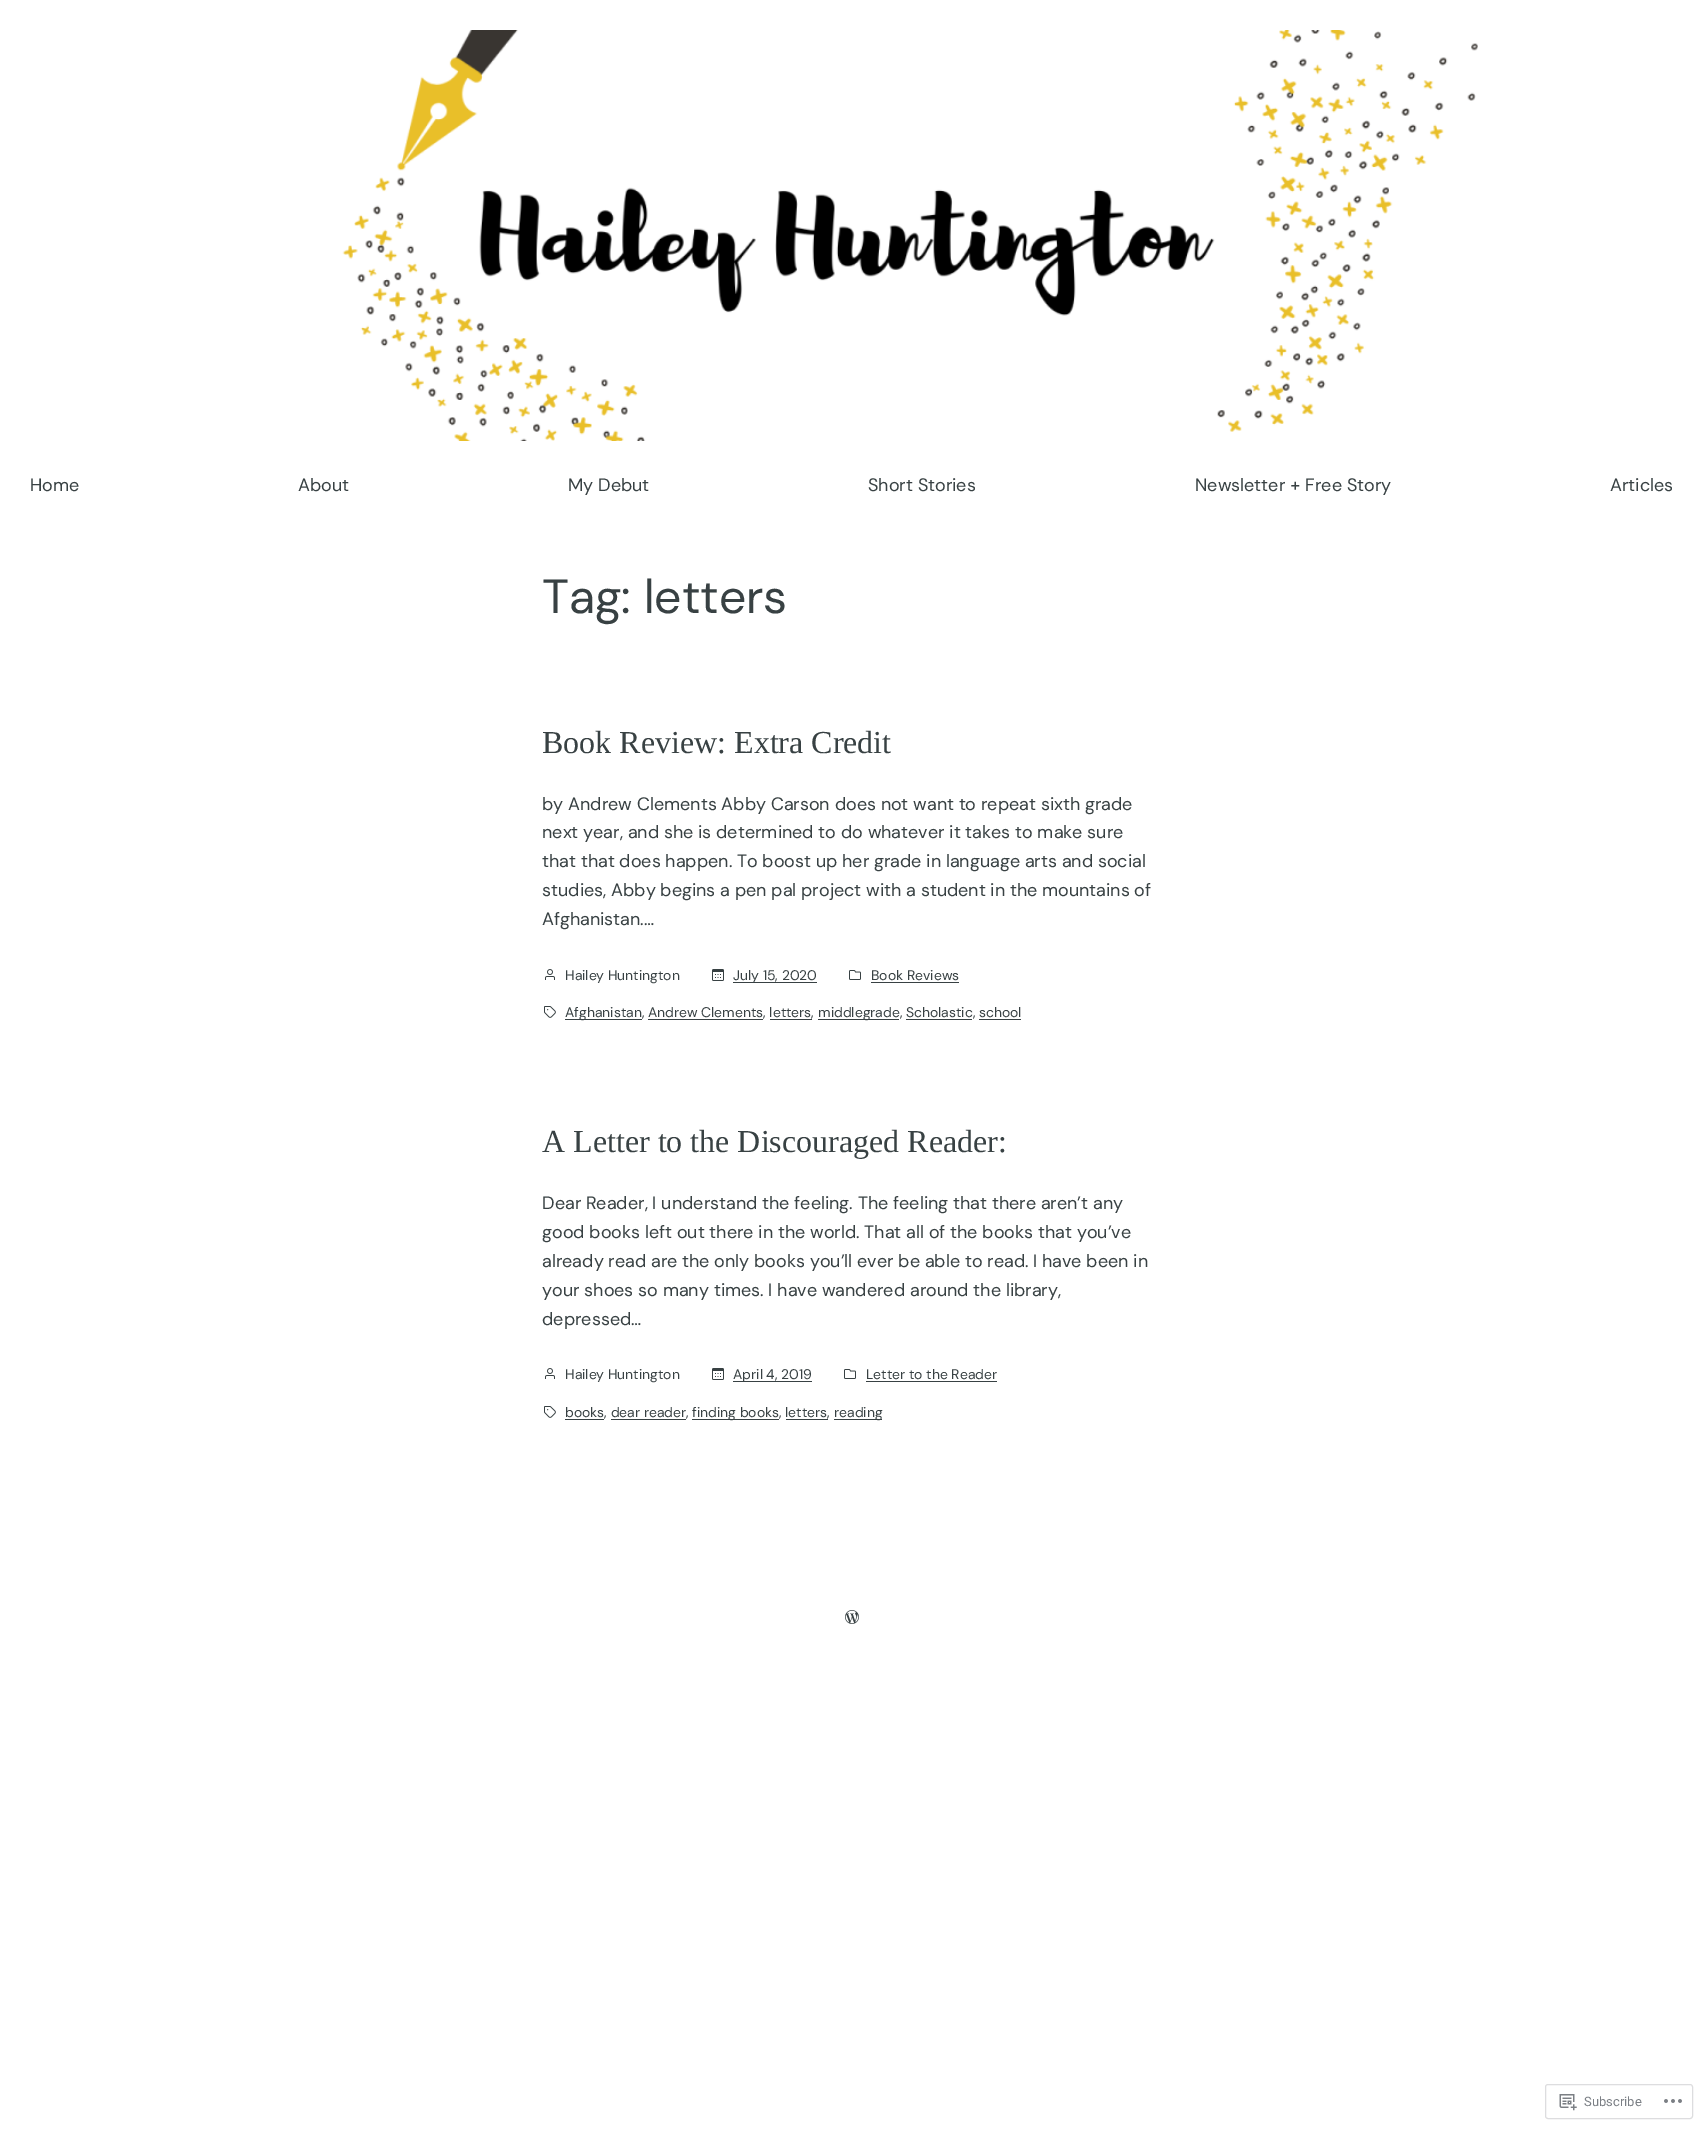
%!PS-Adobe-3.0
%%BoundingBox: 0 0 1703 2129
%%LanguageLevel: 3
%%Pages: 1
%%EndComments
%%BeginProlog
/setink { 3 { 255 div 3 1 roll } repeat setrgbcolor } def
/usefont { [ exch dup neg 0 0 3 -1 roll 0 0 ] selectfont } def
/drawtext { setink usefont moveto show } def
/fillbox { setink rectfill } def
/rrect { 5 dict begin { /r /h /w /y /x } { exch def } forall
  x r add y moveto x w add y 2 copy h add r arct x w add y h add x 1 index r arct
  x y h add x y r arct x y 2 copy exch w add exch r arct closepath end } def
/drawimage { 5 dict begin { /h /w /y /x /name } { exch def } forall
  gsave x y translate w h scale
  w h 8 [w 0 0 h 0 0] name (r) file false 3 colorimage grestore end } def
%%EndProlog
%%BeginSetup
<< /PageSize [1703 2129] >> setpagedevice
%%EndSetup
%%Page: 1 1
0 2129 translate 1 -1 scale
4 setmiterlimit
0 0 1703 2129 255 255 255 fillbox
(assets/img1.rgb) 342 30 1136 411 drawimage
(Home) 30 491 /DMSans-Regular 18 56 65 67 drawtext
(About) 298 491 /DMSans-Regular 18 56 65 67 drawtext
(My Debut) 568 491 /DMSans-Regular 18 56 65 67 drawtext
(Short Stories) 868 491 /DMSans-Regular 18 56 65 67 drawtext
(Newsletter + Free Story) 1195 491 /DMSans-Regular 18 56 65 67 drawtext
(Articles) 1610 491 /DMSans-Regular 18 56 65 67 drawtext
(Tag: letters) 542 613 /DMSans-Regular 48 56 65 67 drawtext
(Book Review: Extra Credit) 542 753 /LiberationSerif-Regular 32 56 65 67 drawtext
(by Andrew Clements Abby Carson does not want to repeat sixth grade) 542 810 /DMSans-Regular 18 56 65 67 drawtext
(next year, and she is determined to do whatever it takes to make sure) 542 838 /DMSans-Regular 18 56 65 67 drawtext
(that that does happen. To boost up her grade in language arts and social) 542 867 /DMSans-Regular 18 56 65 67 drawtext
(studies, Abby begins a pen pal project with a student in the mountains of) 542 896 /DMSans-Regular 18 56 65 67 drawtext
(Afghanistan.…) 542 925 /DMSans-Regular 18 56 65 67 drawtext
(assets/img2.rgb) 545 969 10 11 drawimage
(Hailey Huntington) 565 980 /DMSans-Regular 14 56 65 67 drawtext
(assets/img3.rgb) 712 969 12 12 drawimage
733 982 84 1 56 65 67 fillbox
(July 15, 2020) 733 980 /DMSans-Regular 14 56 65 67 drawtext
(assets/img4.rgb) 849 970 12 10 drawimage
(Book Reviews) 871 980 /DMSans-Regular 14 56 65 67 drawtext
871 982 88 1 56 65 67 fillbox
(assets/img5.rgb) 544 1006 12 12 drawimage
565 1019 77 1 56 65 67 fillbox
(Afghanistan, Andrew Clements, letters,) 565 1017 /DMSans-Regular 14 56 65 67 drawtext
818 1019 81 1 56 65 67 fillbox
(middlegrade, Scholastic, school) 818 1017 /DMSans-Regular 14 56 65 67 drawtext
648 1019 115 1 56 65 67 fillbox
770 1019 42 1 56 65 67 fillbox
906 1019 66 1 56 65 67 fillbox
979 1019 42 1 56 65 67 fillbox
(A Letter to the Discouraged Reader:) 542 1152 /LiberationSerif-Regular 32 56 65 67 drawtext
(Dear Reader, I understand the feeling. The feeling that there aren’t any) 542 1209 /DMSans-Regular 18 56 65 67 drawtext
(good books left out there in the world. That all of the books that you’ve) 542 1238 /DMSans-Regular 18 56 65 67 drawtext
(already read are the only books you’ll ever be able to read. I have been in) 542 1267 /DMSans-Regular 18 56 65 67 drawtext
(your shoes so many times. I have wandered around the library,) 542 1296 /DMSans-Regular 18 56 65 67 drawtext
(depressed…) 542 1325 /DMSans-Regular 18 56 65 67 drawtext
(assets/img2.rgb) 545 1368 10 11 drawimage
(Hailey Huntington) 565 1379 /DMSans-Regular 14 56 65 67 drawtext
(assets/img3.rgb) 712 1368 12 12 drawimage
733 1381 79 1 56 65 67 fillbox
(April 4, 2019) 733 1379 /DMSans-Regular 14 56 65 67 drawtext
(assets/img4.rgb) 844 1369 12 10 drawimage
(Letter to the Reader) 866 1379 /DMSans-Regular 14 56 65 67 drawtext
866 1381 131 1 56 65 67 fillbox
(assets/img5.rgb) 544 1406 12 12 drawimage
(books, dear reader,) 565 1417 /DMSans-Regular 14 56 65 67 drawtext
565 1419 39 1 56 65 67 fillbox
692 1419 87 1 56 65 67 fillbox
(finding books, letters,) 692 1417 /DMSans-Regular 14 56 65 67 drawtext
834 1419 48 1 56 65 67 fillbox
(reading) 834 1417 /DMSans-Regular 14 56 65 67 drawtext
611 1419 75 1 56 65 67 fillbox
786 1419 42 1 56 65 67 fillbox
(assets/img6.rgb) 845 1610 14 14 drawimage
221 221 223 setink
1545.5 2084.5 147 34 2.5 rrect stroke
(assets/img7.rgb) 1559 2094 18 17 drawimage
(Subscribe) 1584 2106 /Roboto-Regular 13 123 127 133 drawtext
(assets/img8.rgb) 1664 2099 18 4 drawimage
showpage
%%EOF
